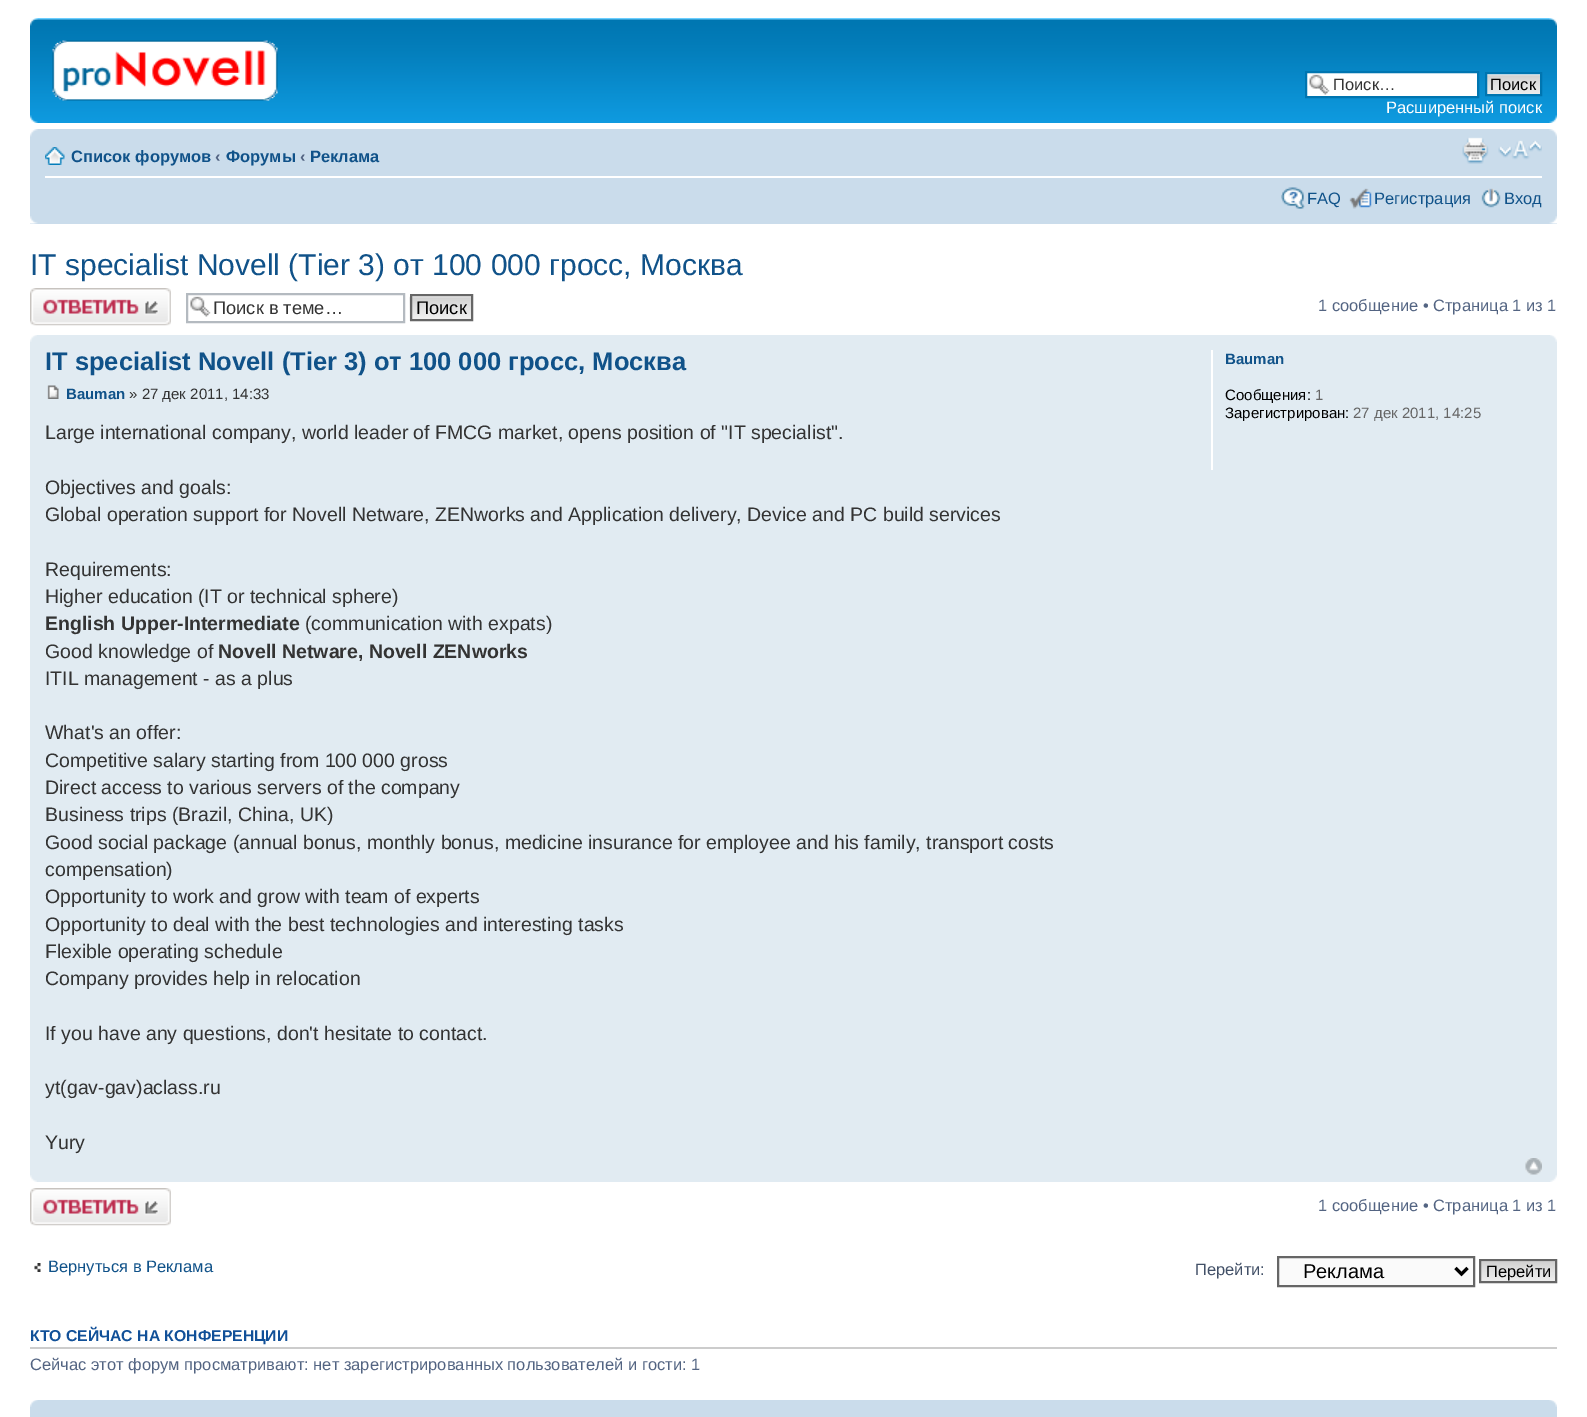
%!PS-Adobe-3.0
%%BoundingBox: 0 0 1587 1417
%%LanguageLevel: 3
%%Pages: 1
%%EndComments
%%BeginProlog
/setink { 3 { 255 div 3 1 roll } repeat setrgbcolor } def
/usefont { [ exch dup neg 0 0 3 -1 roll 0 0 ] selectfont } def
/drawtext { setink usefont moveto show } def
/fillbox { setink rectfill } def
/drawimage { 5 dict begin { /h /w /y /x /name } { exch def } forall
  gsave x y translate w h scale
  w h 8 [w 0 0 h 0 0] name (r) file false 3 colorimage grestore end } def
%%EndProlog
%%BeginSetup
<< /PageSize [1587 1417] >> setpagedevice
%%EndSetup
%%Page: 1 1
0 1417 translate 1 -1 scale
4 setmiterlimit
0 0 1587 1417 255 255 255 fillbox
(assets/img1.rgb) 30 18 1527 105 drawimage
(assets/img2.rgb) 30 18 8 8 drawimage
(assets/img3.rgb) 1549 18 8 8 drawimage
(assets/img4.rgb) 52 40 226 61 drawimage
1307 73 170 23 255 255 255 fillbox
(assets/img5.rgb) 1309 74 21 21 drawimage
0 117 176 setink
2 setlinewidth
1306 72 172 25 rectstroke
(Поиск…) 1333 90 /LiberationSans-Regular 16.5 51 51 51 drawtext
1487 74 53 1 250 250 250 fillbox
(assets/img6.rgb) 1487 75 53 19 drawimage
0 117 176 setink
1486 73 55 22 rectstroke
(Поиск) 1490 90 /LiberationSans-Regular 16.5 0 0 0 drawtext
(Расширенный поиск) 1386 113 /LiberationSans-Regular 16.5 255 255 255 drawtext
(assets/img7.rgb) 30 115 8 8 drawimage
(assets/img8.rgb) 1549 115 8 8 drawimage
30 129 1527 95 202 220 235 fillbox
(assets/img9.rgb) 30 129 8 8 drawimage
(assets/img10.rgb) 1549 129 8 8 drawimage
45 176 1497 2 255 255 255 fillbox
(assets/img11.rgb) 45 147 20 18 drawimage
(Список форумов) 71 162 /LiberationSans-Bold 16.5 16 82 137 drawtext
(‹) 215 162 /LiberationSans-Bold 16.5 83 100 130 drawtext
(Форумы) 226 162 /LiberationSans-Bold 16.5 16 82 137 drawtext
(‹) 300 162 /LiberationSans-Bold 16.5 83 100 130 drawtext
(Реклама) 310 162 /LiberationSans-Bold 16.5 16 82 137 drawtext
(assets/img12.rgb) 1462 137 27 27 drawimage
(assets/img13.rgb) 1498 140 44 20 drawimage
(assets/img14.rgb) 1281 187 24 22 drawimage
(FAQ) 1307 204 /LiberationSans-Regular 16.5 16 82 137 drawtext
(assets/img15.rgb) 1349 188 23 21 drawimage
(Регистрация) 1374 204 /LiberationSans-Regular 16.5 16 82 137 drawtext
(assets/img16.rgb) 1481 188 20 20 drawimage
(Вход) 1504 204 /LiberationSans-Regular 16.5 16 82 137 drawtext
(assets/img17.rgb) 30 216 8 8 drawimage
(assets/img18.rgb) 1549 216 8 8 drawimage
(IT specialist Novell \(Tier 3\) от 100 000 гросс, Москва) 30 275 /LiberationSans-Regular 30 16 82 137 drawtext
(assets/img19.rgb) 30 288 141 38 drawimage
(assets/img20.rgb) 190 296 21 21 drawimage
180 186 192 setink
187 294 217 28 rectstroke
(Поиск в теме…) 213 314 /LiberationSans-Regular 18.25 51 51 51 drawtext
(assets/img21.rgb) 409 296 62 25 drawimage
102 102 102 setink
411 295 61 25 rectstroke
(Поиск) 416 314 /LiberationSans-Regular 18.25 0 0 0 drawtext
(1 сообщение • Страница 1 из 1) 1318 311 /LiberationSans-Regular 16.5 83 100 130 drawtext
30 335 1527 847 225 235 242 fillbox
(assets/img22.rgb) 30 335 7 7 drawimage
(assets/img23.rgb) 1550 335 7 7 drawimage
(IT specialist Novell \(Tier 3\) от 100 000 гросс, Москва) 45 370 /LiberationSans-Bold 25.5 16 82 137 drawtext
(assets/img24.rgb) 47 385 12 14 drawimage
(Bauman) 66 399 /LiberationSans-Bold 15 16 82 137 drawtext
(» 27 дек 2011, 14:33) 129 399 /LiberationSans-Regular 15 51 51 51 drawtext
(Large international company, world leader of FMCG market, opens position of "IT specialist".) 45 439 /LiberationSans-Regular 19.5 51 51 51 drawtext
(Objectives and goals:) 45 494 /LiberationSans-Regular 19.5 51 51 51 drawtext
(Global operation support for Novell Netware, ZENworks and Application delivery, Device and PC build services) 45 521 /LiberationSans-Regular 19.5 51 51 51 drawtext
(Requirements:) 45 576 /LiberationSans-Regular 19.5 51 51 51 drawtext
(Higher education \(IT or technical sphere\)) 45 603 /LiberationSans-Regular 19.5 51 51 51 drawtext
(English Upper-Intermediate) 45 630 /LiberationSans-Bold 19.5 51 51 51 drawtext
(\(communication with expats\)) 305 630 /LiberationSans-Regular 19.5 51 51 51 drawtext
(Good knowledge of) 45 658 /LiberationSans-Regular 19.5 51 51 51 drawtext
(Novell Netware, Novell ZENworks) 218 658 /LiberationSans-Bold 19.5 51 51 51 drawtext
(ITIL management - as a plus) 45 685 /LiberationSans-Regular 19.5 51 51 51 drawtext
(What's an offer:) 45 739 /LiberationSans-Regular 19.5 51 51 51 drawtext
(Competitive salary starting from 100 000 gross) 45 767 /LiberationSans-Regular 19.5 51 51 51 drawtext
(Direct access to various servers of the company) 45 794 /LiberationSans-Regular 19.5 51 51 51 drawtext
(Business trips \(Brazil, China, UK\)) 45 821 /LiberationSans-Regular 19.5 51 51 51 drawtext
(Good social package \(annual bonus, monthly bonus, medicine insurance for employee and his family, transport costs) 45 849 /LiberationSans-Regular 19.5 51 51 51 drawtext
(compensation\)) 45 876 /LiberationSans-Regular 19.5 51 51 51 drawtext
(Opportunity to work and grow with team of experts) 45 903 /LiberationSans-Regular 19.5 51 51 51 drawtext
(Opportunity to deal with the best technologies and interesting tasks) 45 931 /LiberationSans-Regular 19.5 51 51 51 drawtext
(Flexible operating schedule) 45 958 /LiberationSans-Regular 19.5 51 51 51 drawtext
(Company provides help in relocation) 45 985 /LiberationSans-Regular 19.5 51 51 51 drawtext
(If you have any questions, don't hesitate to contact.) 45 1040 /LiberationSans-Regular 19.5 51 51 51 drawtext
(yt\(gav-gav\)aclass.ru) 45 1094 /LiberationSans-Regular 19.5 51 51 51 drawtext
(Yury) 45 1149 /LiberationSans-Regular 19.5 51 51 51 drawtext
1211 350 2 120 255 255 255 fillbox
(Bauman) 1225 364 /LiberationSans-Bold 15 16 82 137 drawtext
(Сообщения:) 1225 400 /LiberationSans-Regular 15 0 0 0 drawtext
(1) 1315 400 /LiberationSans-Regular 15 102 102 102 drawtext
(Зарегистрирован:) 1225 418 /LiberationSans-Regular 15 0 0 0 drawtext
(27 дек 2011, 14:25) 1353 418 /LiberationSans-Regular 15 102 102 102 drawtext
(assets/img25.rgb) 1525 1158 17 17 drawimage
(assets/img26.rgb) 30 1175 7 7 drawimage
(assets/img27.rgb) 1550 1175 7 7 drawimage
(assets/img19.rgb) 30 1188 141 38 drawimage
(1 сообщение • Страница 1 из 1) 1318 1211 /LiberationSans-Regular 16.5 83 100 130 drawtext
(assets/img28.rgb) 34 1263 7 9 drawimage
(Вернуться в Реклама) 48 1272 /LiberationSans-Regular 16.5 16 82 137 drawtext
(Перейти:) 1195 1275 /LiberationSans-Regular 16.5 66 80 103 drawtext
250 250 250 setink
1278 1257 moveto 1474 1257 lineto 1474 1286 lineto 1278 1286 lineto closepath gsave fill grestore
102 102 102 setink
stroke
0 0 0 setink
3 setlinewidth
1455.5 1268 moveto 1461.5 1274 lineto 1467.5 1268 lineto stroke
(Реклама) 1303 1278 /LiberationSans-Regular 20 0 0 0 drawtext
(assets/img29.rgb) 1481 1261 74 20 drawimage
102 102 102 setink
2 setlinewidth
1480 1260 76 22 rectstroke
(Перейти) 1486 1277 /LiberationSans-Regular 16.5 0 0 0 drawtext
30 1347 1527 2 204 204 204 fillbox
(КТО СЕЙЧАС НА КОНФЕРЕНЦИИ) 30 1341 /LiberationSans-Bold 15.75 17 80 152 drawtext
(Сейчас этот форум просматривают: нет зарегистрированных пользователей и гости: 1) 30 1370 /LiberationSans-Regular 16.5 83 100 130 drawtext
30 1400 1527 17 202 220 235 fillbox
(assets/img30.rgb) 30 1400 8 7 drawimage
(assets/img31.rgb) 1549 1400 8 7 drawimage
showpage
%%EOF
